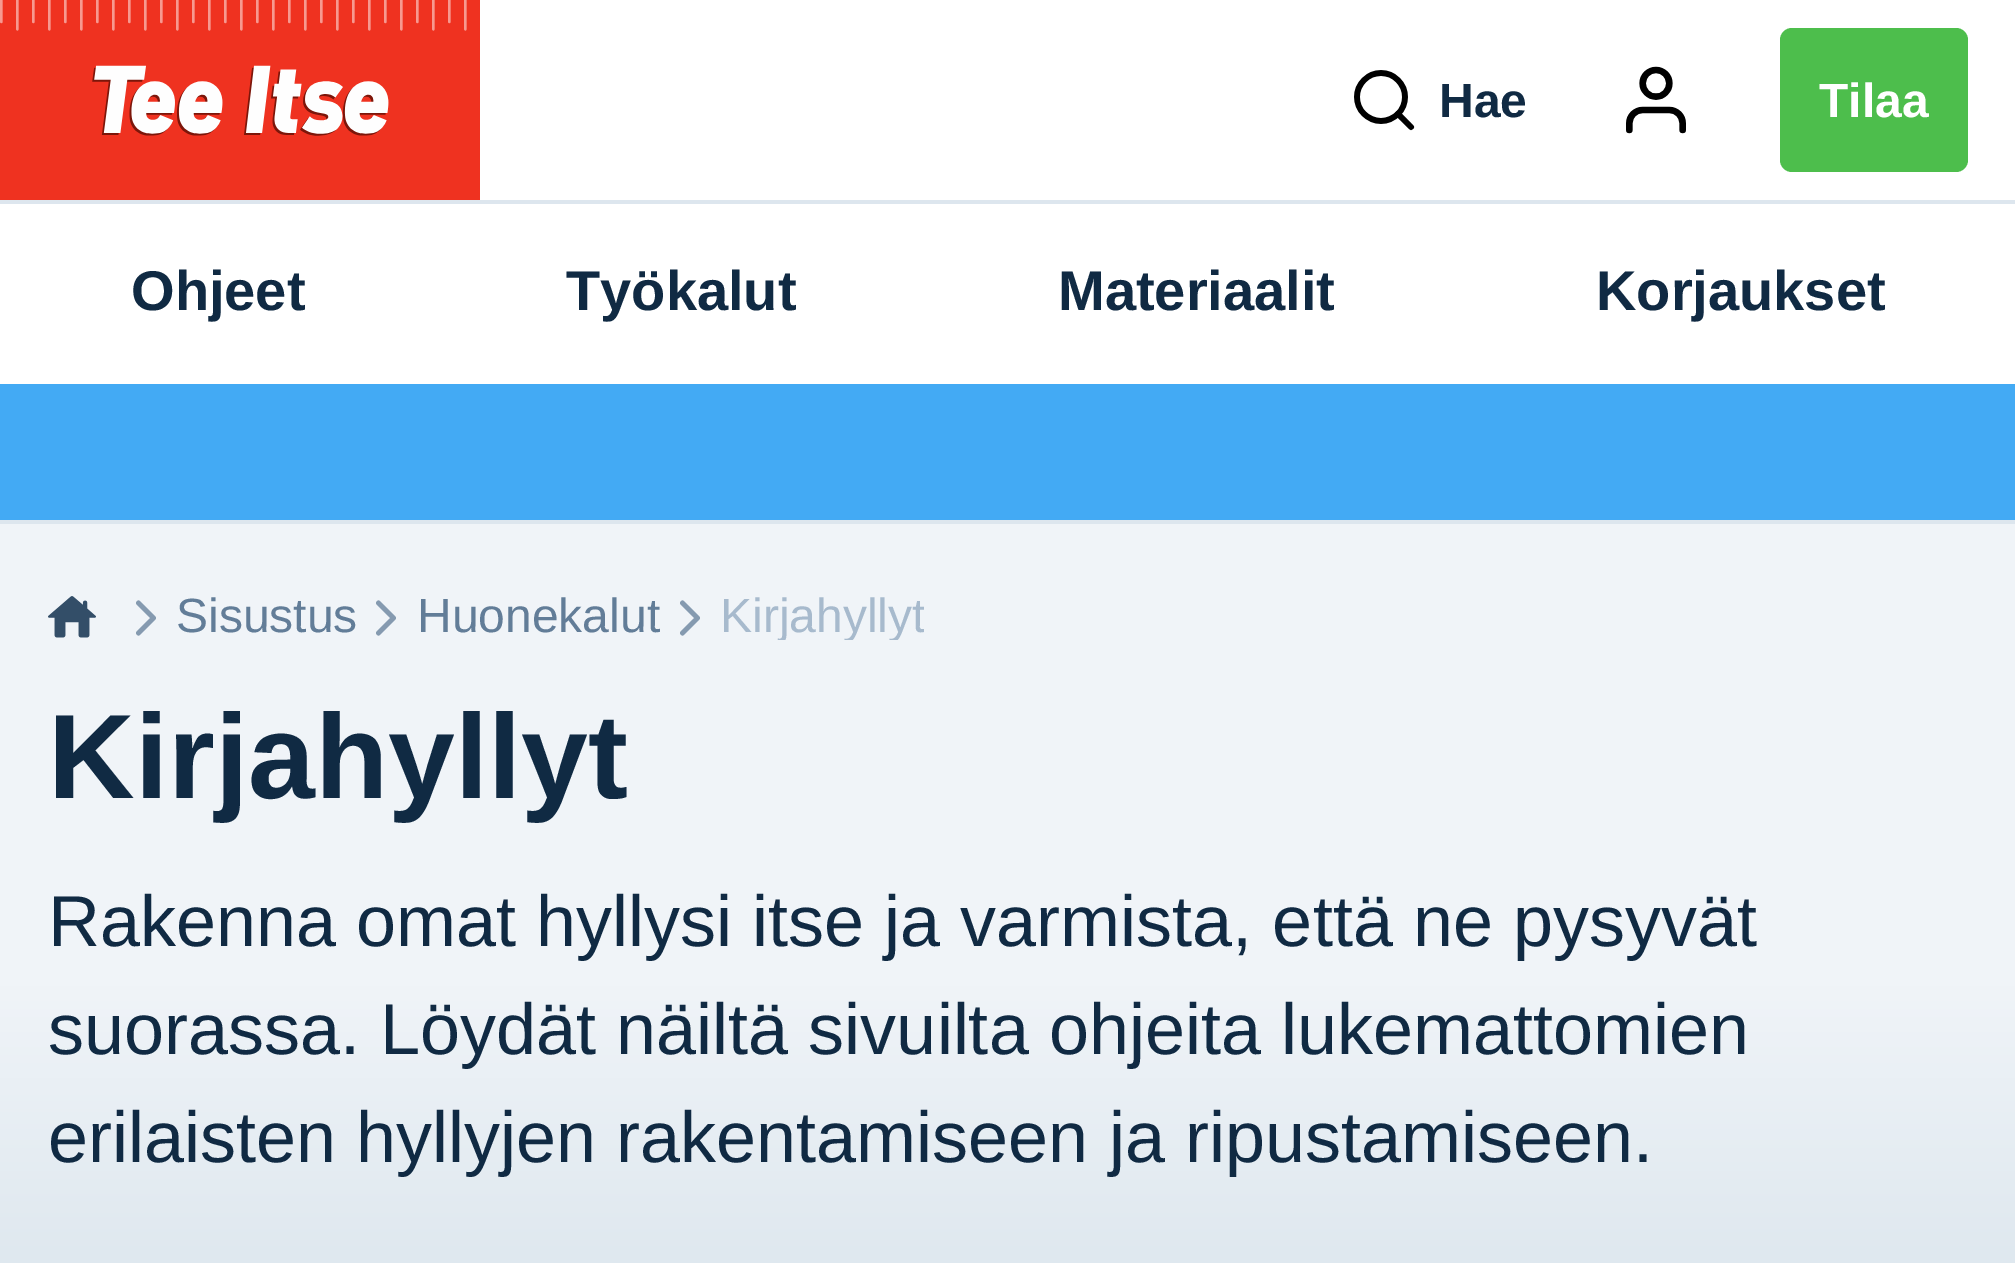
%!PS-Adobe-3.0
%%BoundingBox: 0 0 2015 1263
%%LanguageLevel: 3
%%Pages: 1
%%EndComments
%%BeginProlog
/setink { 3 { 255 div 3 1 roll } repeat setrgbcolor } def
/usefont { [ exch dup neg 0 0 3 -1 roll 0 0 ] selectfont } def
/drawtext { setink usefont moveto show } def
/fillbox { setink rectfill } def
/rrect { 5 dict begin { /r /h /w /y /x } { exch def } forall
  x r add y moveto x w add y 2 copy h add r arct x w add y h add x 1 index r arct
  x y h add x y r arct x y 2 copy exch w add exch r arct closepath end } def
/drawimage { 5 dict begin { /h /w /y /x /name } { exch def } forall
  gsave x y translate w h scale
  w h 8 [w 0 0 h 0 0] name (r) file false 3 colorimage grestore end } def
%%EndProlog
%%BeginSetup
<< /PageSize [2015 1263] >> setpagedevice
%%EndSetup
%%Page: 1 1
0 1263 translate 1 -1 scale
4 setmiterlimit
0 0 2015 1263 255 255 255 fillbox
0 520 2015 4 221 230 238 fillbox
0 0 480 200 239 50 32 fillbox
(assets/img1.rgb) 0 0 467 31 drawimage
(assets/img2.rgb) 92 65 297 71 drawimage
(assets/img3.rgb) 1354 70 61 61 drawimage
(Hae) 1439 117 /LiberationSans-Bold 48 16 42 67 drawtext
(assets/img4.rgb) 1626 66 60 68 drawimage
77 190 76 setink
1780 28 188 144 12 rrect fill
(Tilaa) 1819 117 /LiberationSans-Bold 48 255 255 255 drawtext
0 200 2015 4 221 230 238 fillbox
(Ohjeet) 131 310 /LiberationSans-Bold 56 16 42 67 drawtext
(Työkalut) 566 310 /LiberationSans-Bold 56 16 42 67 drawtext
(Materiaalit) 1058 310 /LiberationSans-Bold 56 16 42 67 drawtext
(Korjaukset) 1596 310 /LiberationSans-Bold 56 16 42 67 drawtext
0 384 2015 136 67 170 244 fillbox
gsave 0 524 moveto 2015 524 lineto 2015 1263 lineto 0 1263 lineto closepath clip newpath
<< /ShadingType 2 /ColorSpace /DeviceRGB /Coords [1008 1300 1008 524] /Extend [true true] /Function << /FunctionType 3 /Domain [0 1] /Functions [<< /FunctionType 2 /Domain [0 1] /C0 [0.867 0.902 0.933] /C1 [0.941 0.957 0.973] /N 1 >> << /FunctionType 2 /Domain [0 1] /C0 [0.941 0.957 0.973] /C1 [0.941 0.957 0.973] /N 1 >>] /Bounds [0.41] /Encode [0 1 0 1] >> >> shfill grestore
(assets/img5.rgb) 48 596 48 42 drawimage
(assets/img6.rgb) 136 600 20 36 drawimage
(Sisustus) 176 632 /LiberationSans-Regular 48 98 125 152 drawtext
(assets/img6.rgb) 376 600 20 36 drawimage
(Huonekalut) 417 632 /LiberationSans-Regular 48 98 125 152 drawtext
(assets/img6.rgb) 680 600 20 36 drawimage
gsave
720 592 204 48 rectclip
(Kirjahyllyt) 720 632 /LiberationSans-Regular 48 167 186 205 drawtext
grestore
(Kirjahyllyt) 48 798 /LiberationSans-Bold 120 16 42 67 drawtext
(Rakenna omat hyllysi itse ja varmista, että ne pysyvät) 48 946 /LiberationSans-Regular 72 16 42 67 drawtext
(suorassa. Löydät näiltä sivuilta ohjeita lukemattomien) 48 1054 /LiberationSans-Regular 72 16 42 67 drawtext
(erilaisten hyllyjen rakentamiseen ja ripustamiseen.) 48 1162 /LiberationSans-Regular 72 16 42 67 drawtext
showpage
%%EOF
